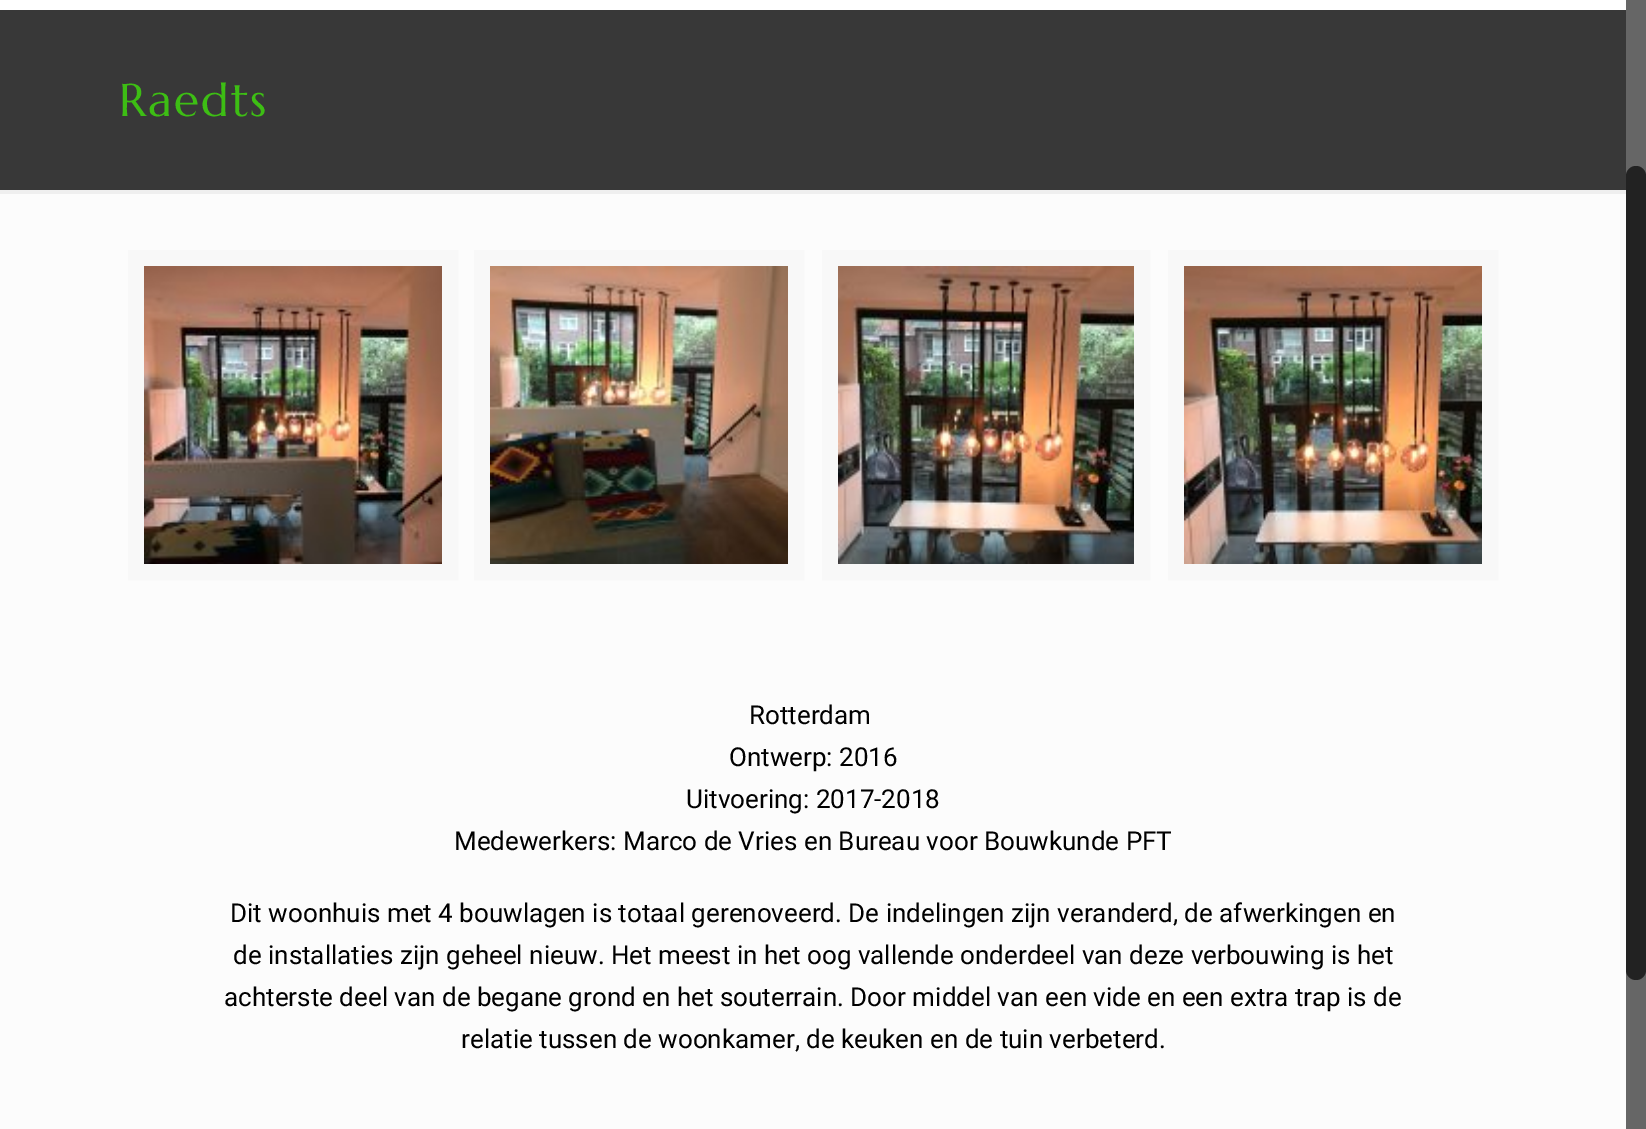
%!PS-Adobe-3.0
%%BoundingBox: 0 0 1646 1129
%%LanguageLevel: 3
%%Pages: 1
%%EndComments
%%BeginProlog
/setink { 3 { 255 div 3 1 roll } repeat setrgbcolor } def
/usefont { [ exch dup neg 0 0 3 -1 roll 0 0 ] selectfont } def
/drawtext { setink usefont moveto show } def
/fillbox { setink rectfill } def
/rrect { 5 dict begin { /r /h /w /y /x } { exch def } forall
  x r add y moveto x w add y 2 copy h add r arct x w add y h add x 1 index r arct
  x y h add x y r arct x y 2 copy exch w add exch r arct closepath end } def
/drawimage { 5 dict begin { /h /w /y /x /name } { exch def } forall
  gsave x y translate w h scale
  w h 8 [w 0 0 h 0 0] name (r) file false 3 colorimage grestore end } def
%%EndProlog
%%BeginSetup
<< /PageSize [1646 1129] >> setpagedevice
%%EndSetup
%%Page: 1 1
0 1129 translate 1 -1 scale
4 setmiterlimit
0 0 1646 1129 252 252 252 fillbox
0 0 1626 10 255 255 255 fillbox
0 10 1626 180 56 56 56 fillbox
/Marcellus-Regular 46 usefont
61 190 20 setink
119 116 moveto 2 0 (Raedts) ashow
0 190 1626 4 239 239 239 fillbox
248 248 248 setink
16 setlinewidth
136 258 314 314 rectstroke
(assets/img1.rgb) 144 266 298 298 drawimage
482 258 314 314 rectstroke
(assets/img2.rgb) 490 266 298 298 drawimage
830 258 312 314 rectstroke
(assets/img3.rgb) 838 266 296 298 drawimage
1176 258 314 314 rectstroke
(assets/img4.rgb) 1184 266 298 298 drawimage
(Rotterdam) 749 724 /Roboto-Regular 26 0 0 0 drawtext
(Ontwerp: 2016) 729 766 /Roboto-Regular 26 0 0 0 drawtext
(Uitvoering: 2017-2018) 686 808 /Roboto-Regular 26 0 0 0 drawtext
(Medewerkers: Marco de Vries en Bureau voor Bouwkunde PFT) 454 850 /Roboto-Regular 26 0 0 0 drawtext
(Dit woonhuis met 4 bouwlagen is totaal gerenoveerd. De indelingen zijn veranderd, de afwerkingen en) 230 922 /Roboto-Regular 26 0 0 0 drawtext
(de installaties zijn geheel nieuw. Het meest in het oog vallende onderdeel van deze verbouwing is het) 233 964 /Roboto-Regular 26 0 0 0 drawtext
(achterste deel van de begane grond en het souterrain. Door middel van een vide en een extra trap is de) 224 1006 /Roboto-Regular 26 0 0 0 drawtext
(relatie tussen de woonkamer, de keuken en de tuin verbeterd.) 461 1048 /Roboto-Regular 26 0 0 0 drawtext
1626 0 20 1129 102 102 102 fillbox
34 34 34 setink
1626 166 20 814 10 rrect fill
showpage
%%EOF
